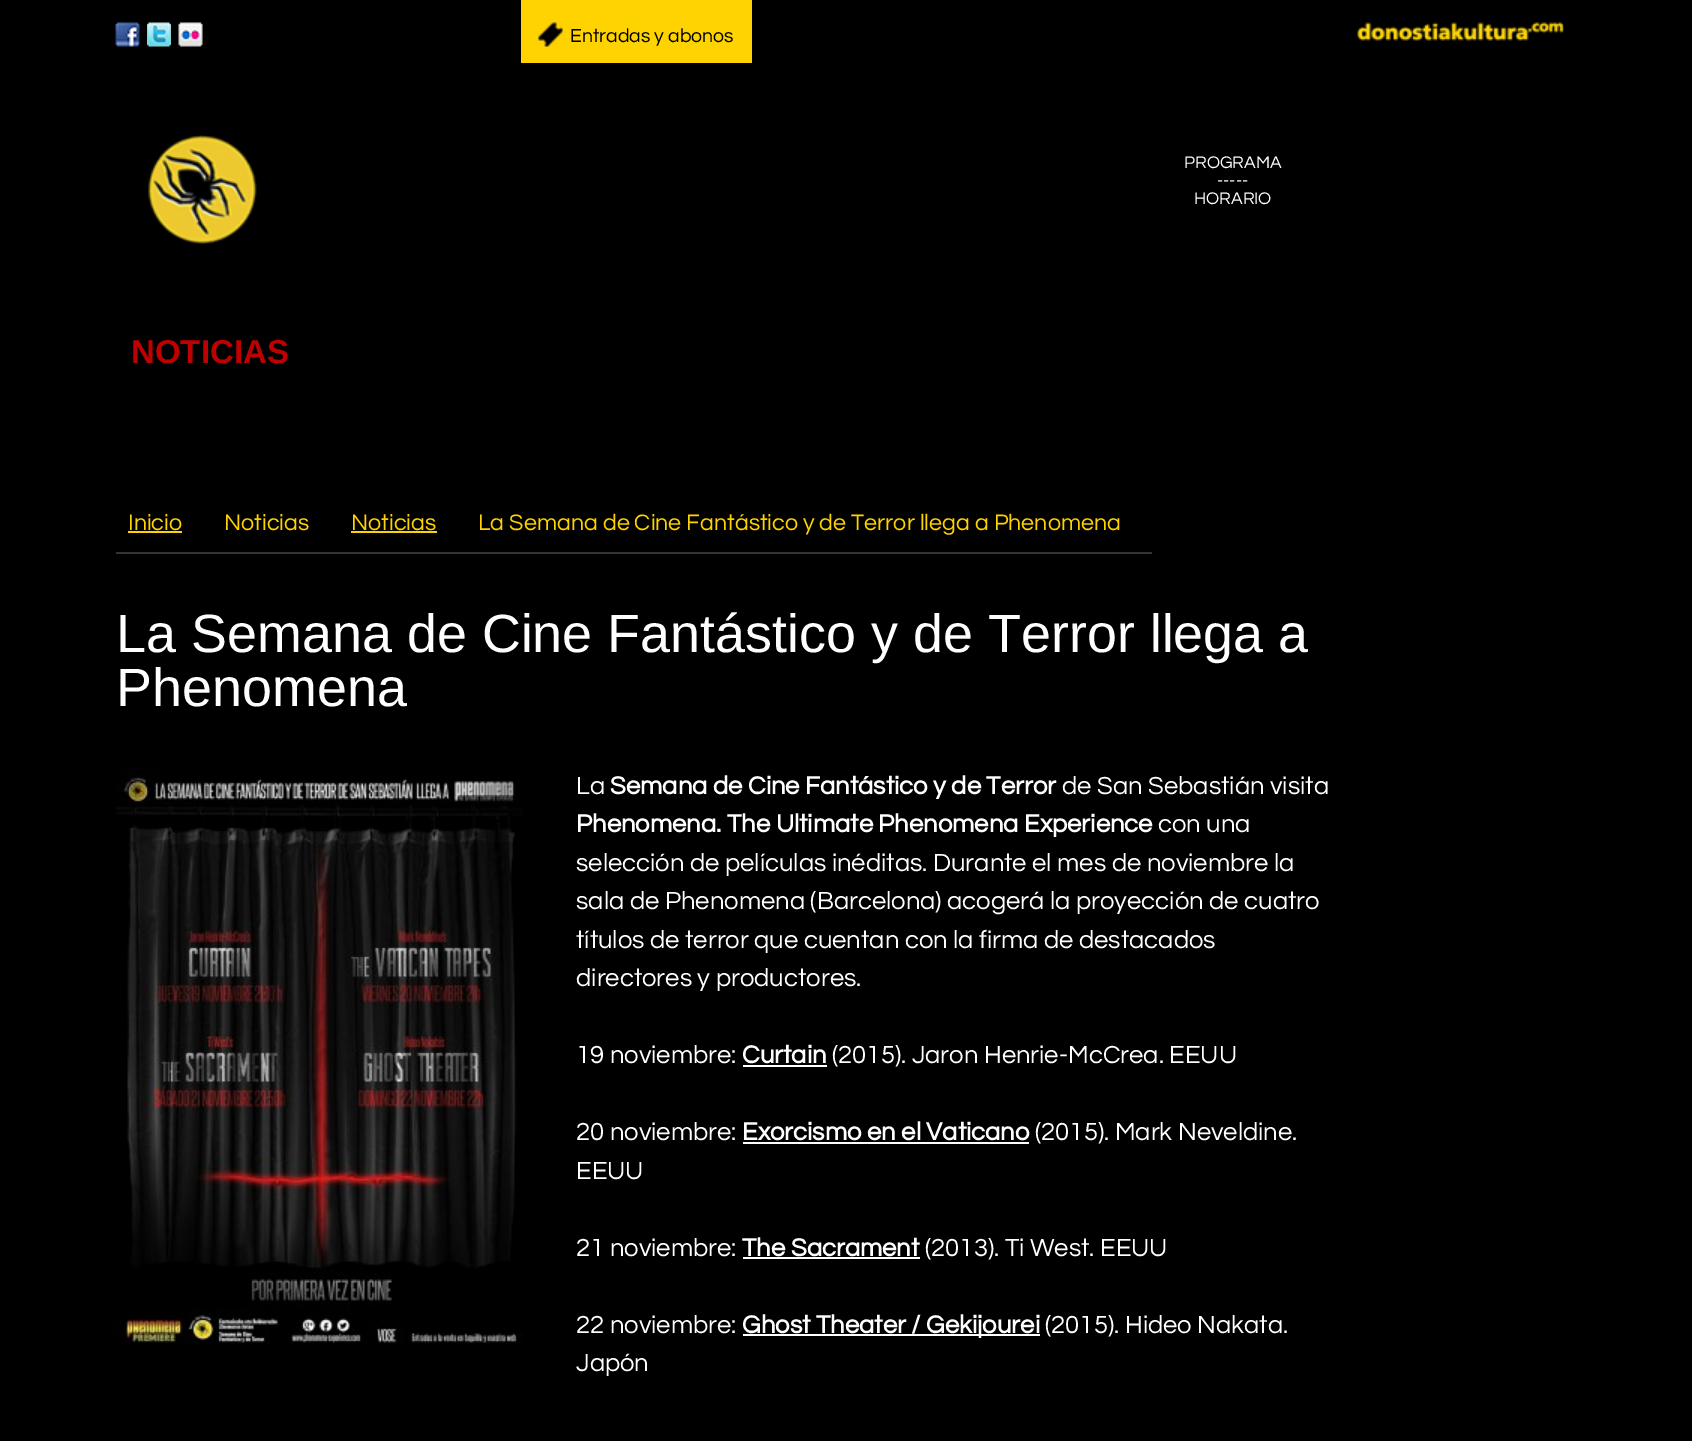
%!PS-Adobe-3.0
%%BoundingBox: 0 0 1692 1441
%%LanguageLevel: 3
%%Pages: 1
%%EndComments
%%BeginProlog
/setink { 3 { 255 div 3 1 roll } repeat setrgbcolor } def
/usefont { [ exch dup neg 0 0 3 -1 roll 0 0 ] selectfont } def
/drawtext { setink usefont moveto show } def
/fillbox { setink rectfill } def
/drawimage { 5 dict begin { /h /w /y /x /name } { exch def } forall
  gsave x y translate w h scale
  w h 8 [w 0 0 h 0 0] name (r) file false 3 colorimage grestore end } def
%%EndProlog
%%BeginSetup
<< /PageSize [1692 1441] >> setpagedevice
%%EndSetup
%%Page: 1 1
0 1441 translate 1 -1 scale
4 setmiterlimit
0 0 1692 1441 0 0 0 fillbox
(assets/img1.rgb) 115 22 25 25 drawimage
(assets/img2.rgb) 147 22 24 25 drawimage
(assets/img3.rgb) 178 22 25 25 drawimage
521 0 231 63 255 211 0 fillbox
(assets/img4.rgb) 538 22 25 25 drawimage
(Entradas y abonos) 570 42 /Questrial-Regular 19.5 0 0 0 drawtext
(assets/img5.rgb) 1357 22 207 19 drawimage
(assets/img6.rgb) 148 135 109 110 drawimage
(PROGRAMA) 1184 168 /Questrial-Regular 17.5 255 255 255 drawtext
(-----) 1217 186 /Questrial-Regular 17.5 255 255 255 drawtext
(HORARIO) 1194 204 /Questrial-Regular 17.5 255 255 255 drawtext
(NOTICIAS) 131 363 /LiberationSans-Bold 33 191 0 0 drawtext
(Inicio) 128 530 /Questrial-Regular 23.3 255 211 0 drawtext
128 531 54 2 255 211 0 fillbox
(Noticias) 224 530 /Questrial-Regular 23.3 255 211 0 drawtext
(Noticias) 351 530 /Questrial-Regular 23.3 255 211 0 drawtext
351 531 86 2 255 211 0 fillbox
(La Semana de Cine Fantástico y de Terror llega a Phenomena) 478 530 /Questrial-Regular 23.3 255 211 0 drawtext
116 552 1036 2 51 51 51 fillbox
(La Semana de Cine Fantástico y de Terror llega a) 116 652 /LiberationSans-Regular 53.9 255 255 255 drawtext
(Phenomena) 116 706 /LiberationSans-Regular 53.9 255 255 255 drawtext
(assets/img7.rgb) 115 768 408 576 drawimage
(La) 576 794 /Questrial-Regular 25.65 255 255 255 drawtext
(Semana de Cine Fantástico y de Terror) 610 794 /Questrial-Bold 25.65 255 255 255 drawtext
(de San Sebastián visita) 1062 794 /Questrial-Regular 25.65 255 255 255 drawtext
(Phenomena. The Ultimate Phenomena Experience) 576 832 /Questrial-Bold 25.65 255 255 255 drawtext
(con una) 1158 832 /Questrial-Regular 25.65 255 255 255 drawtext
(selección de películas inéditas. Durante el mes de noviembre la) 576 871 /Questrial-Regular 25.65 255 255 255 drawtext
(sala de Phenomena \(Barcelona\) acogerá la proyección de cuatro) 576 909 /Questrial-Regular 25.65 255 255 255 drawtext
(títulos de terror que cuentan con la firma de destacados) 576 948 /Questrial-Regular 25.65 255 255 255 drawtext
(directores y productores.) 576 986 /Questrial-Regular 25.65 255 255 255 drawtext
(19 noviembre:) 576 1063 /Questrial-Regular 25.65 255 255 255 drawtext
(Curtain) 742 1063 /Questrial-Bold 25.65 255 255 255 drawtext
743 1065 84 2 255 255 255 fillbox
(\(2015\). Jaron Henrie-McCrea. EEUU) 832 1063 /Questrial-Regular 25.65 255 255 255 drawtext
(20 noviembre:) 576 1140 /Questrial-Regular 25.65 255 255 255 drawtext
(Exorcismo en el Vaticano) 742 1140 /Questrial-Bold 25.65 255 255 255 drawtext
743 1142 286 2 255 255 255 fillbox
(\(2015\). Mark Neveldine.) 1035 1140 /Questrial-Regular 25.65 255 255 255 drawtext
(EEUU) 576 1179 /Questrial-Regular 25.65 255 255 255 drawtext
(21 noviembre:) 576 1256 /Questrial-Regular 25.65 255 255 255 drawtext
(The Sacrament) 742 1256 /Questrial-Bold 25.65 255 255 255 drawtext
743 1257 177 2 255 255 255 fillbox
(\(2013\). Ti West. EEUU) 925 1256 /Questrial-Regular 25.65 255 255 255 drawtext
(22 noviembre:) 576 1333 /Questrial-Regular 25.65 255 255 255 drawtext
743 1334 297 2 255 255 255 fillbox
(Ghost Theater / Gekijourei) 742 1333 /Questrial-Bold 25.65 255 255 255 drawtext
(\(2015\). Hideo Nakata.) 1045 1333 /Questrial-Regular 25.65 255 255 255 drawtext
(Japón) 576 1371 /Questrial-Regular 25.65 255 255 255 drawtext
showpage
%%EOF
